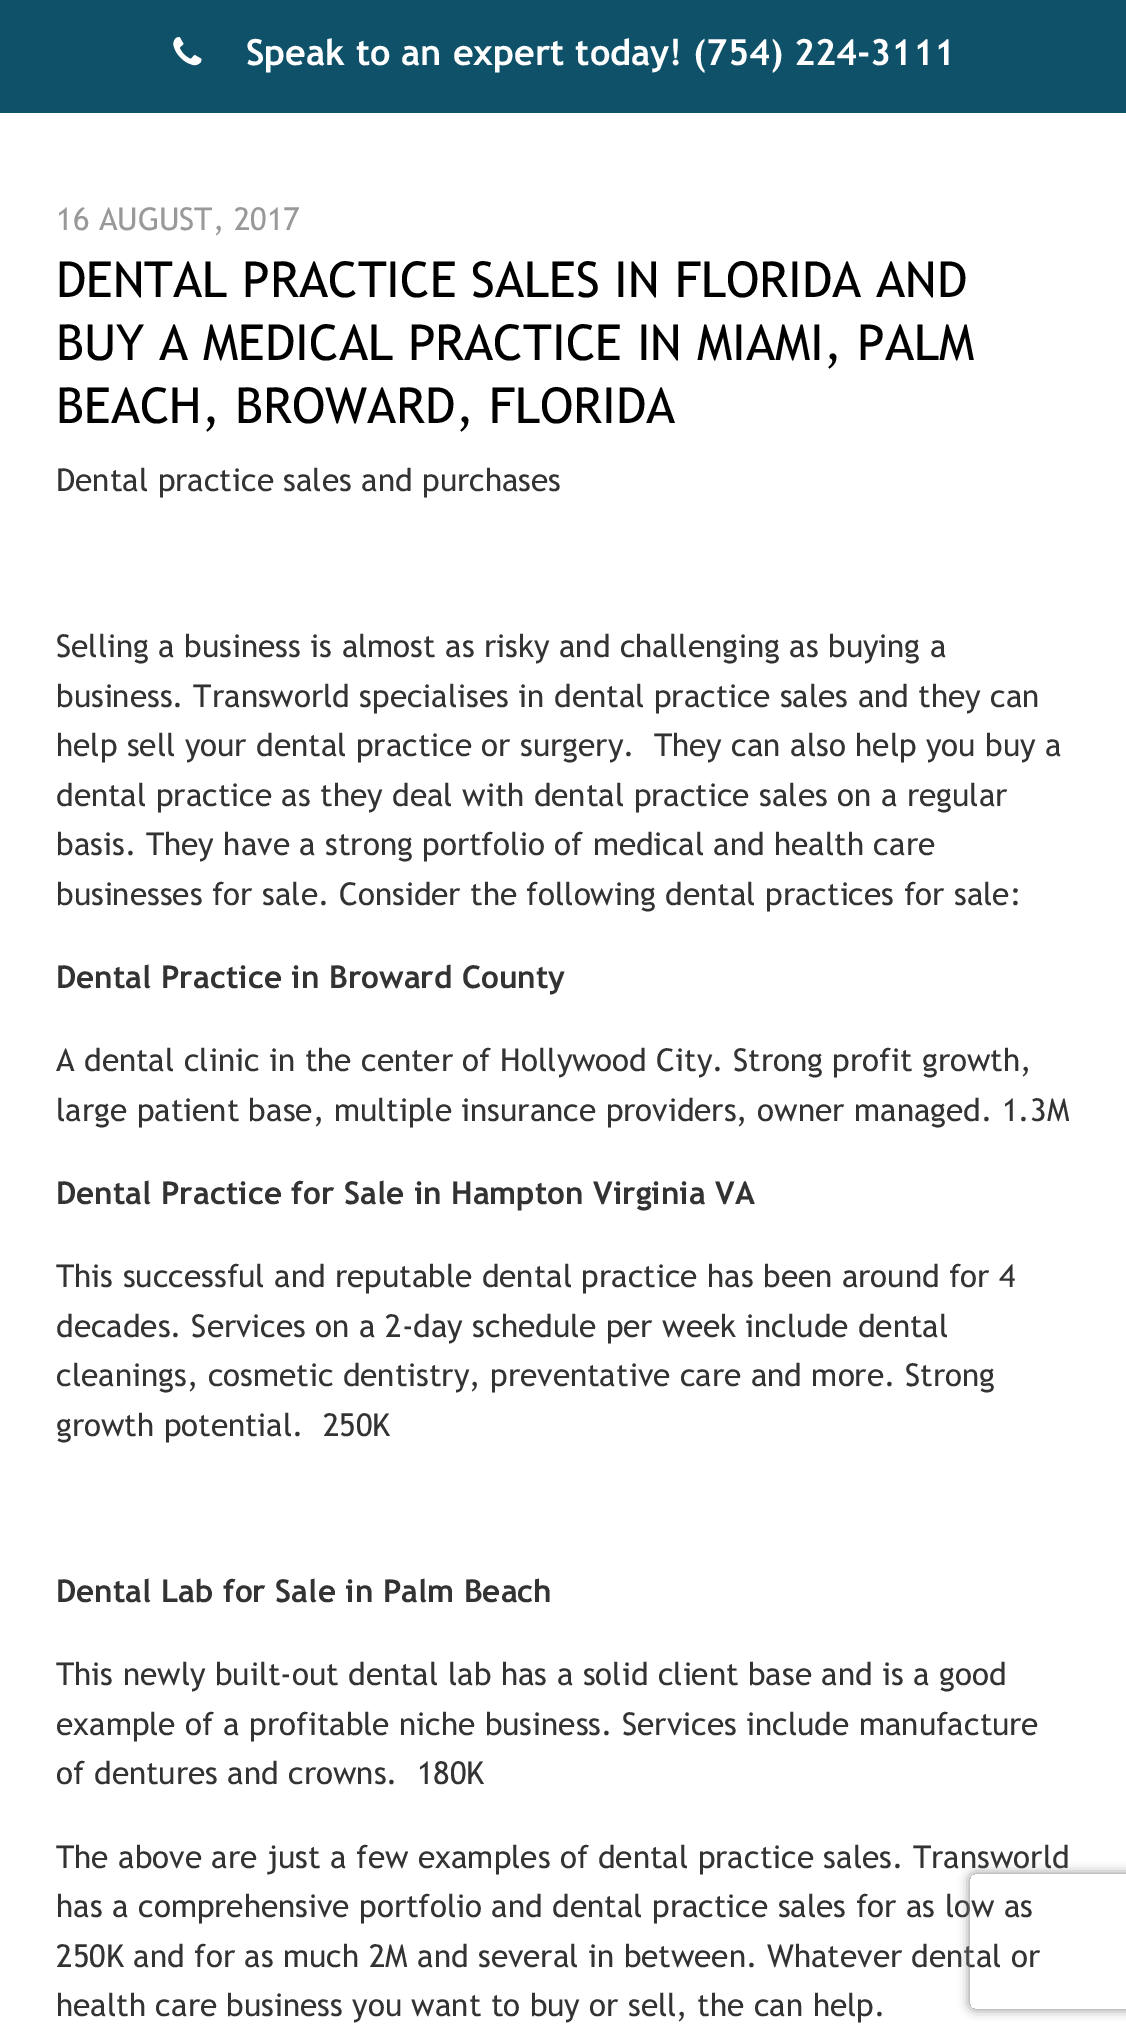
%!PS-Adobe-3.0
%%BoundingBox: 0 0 1126 2040
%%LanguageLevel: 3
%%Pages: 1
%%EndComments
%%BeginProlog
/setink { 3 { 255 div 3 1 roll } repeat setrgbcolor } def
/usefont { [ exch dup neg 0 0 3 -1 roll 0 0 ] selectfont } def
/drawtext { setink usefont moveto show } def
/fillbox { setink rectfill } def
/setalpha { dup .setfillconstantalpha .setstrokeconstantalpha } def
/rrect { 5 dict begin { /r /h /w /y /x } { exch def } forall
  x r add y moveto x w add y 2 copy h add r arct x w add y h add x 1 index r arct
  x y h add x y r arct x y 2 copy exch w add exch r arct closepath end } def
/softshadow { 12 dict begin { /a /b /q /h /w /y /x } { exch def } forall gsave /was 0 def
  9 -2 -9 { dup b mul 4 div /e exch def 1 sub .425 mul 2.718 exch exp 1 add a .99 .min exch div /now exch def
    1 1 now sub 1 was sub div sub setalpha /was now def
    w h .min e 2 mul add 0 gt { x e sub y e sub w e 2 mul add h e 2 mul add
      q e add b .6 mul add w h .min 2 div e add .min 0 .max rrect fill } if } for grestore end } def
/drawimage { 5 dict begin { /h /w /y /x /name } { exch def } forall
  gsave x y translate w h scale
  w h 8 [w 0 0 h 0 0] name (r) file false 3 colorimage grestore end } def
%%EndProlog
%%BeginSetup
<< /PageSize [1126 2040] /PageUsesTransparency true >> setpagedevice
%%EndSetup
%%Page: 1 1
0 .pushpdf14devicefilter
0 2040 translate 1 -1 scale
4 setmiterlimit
0 0 1126 2040 255 255 255 fillbox
0 0 1126 113 14 81 105 fillbox
(assets/img1.rgb) 173 37 29 29 drawimage
(Speak to an expert today! \(754\) 224-3111) 246 65 /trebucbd-Bold 36 255 255 255 drawtext
(16 AUGUST, 2017) 56 230 /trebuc-Regular 31.5 153 153 153 drawtext
(DENTAL PRACTICE SALES IN FLORIDA AND) 56 297 /trebuc-Regular 49.5 0 0 0 drawtext
(BUY A MEDICAL PRACTICE IN MIAMI, PALM) 56 360 /trebuc-Regular 49.5 0 0 0 drawtext
(BEACH, BROWARD, FLORIDA) 56 423 /trebuc-Regular 49.5 0 0 0 drawtext
(Dental practice sales and purchases) 56 491 /trebuc-Regular 31.5 51 51 51 drawtext
(Selling a business is almost as risky and challenging as buying a) 56 657 /trebuc-Regular 31.5 51 51 51 drawtext
(business. Transworld specialises in dental practice sales and they can) 56 707 /trebuc-Regular 31.5 51 51 51 drawtext
(help sell your dental practice or surgery.  They can also help you buy a) 56 756 /trebuc-Regular 31.5 51 51 51 drawtext
(dental practice as they deal with dental practice sales on a regular) 56 806 /trebuc-Regular 31.5 51 51 51 drawtext
(basis. They have a strong portfolio of medical and health care) 56 855 /trebuc-Regular 31.5 51 51 51 drawtext
(businesses for sale. Consider the following dental practices for sale:) 56 905 /trebuc-Regular 31.5 51 51 51 drawtext
(Dental Practice in Broward County) 56 988 /trebucbd-Bold 31.5 51 51 51 drawtext
(A dental clinic in the center of Hollywood City. Strong profit growth,) 56 1071 /trebuc-Regular 31.5 51 51 51 drawtext
(large patient base, multiple insurance providers, owner managed. 1.3M) 56 1121 /trebuc-Regular 31.5 51 51 51 drawtext
(Dental Practice for Sale in Hampton Virginia VA) 56 1204 /trebucbd-Bold 31.5 51 51 51 drawtext
(This successful and reputable dental practice has been around for 4) 56 1287 /trebuc-Regular 31.5 51 51 51 drawtext
(decades. Services on a 2-day schedule per week include dental) 56 1337 /trebuc-Regular 31.5 51 51 51 drawtext
(cleanings, cosmetic dentistry, preventative care and more. Strong) 56 1386 /trebuc-Regular 31.5 51 51 51 drawtext
(growth potential.  250K) 56 1436 /trebuc-Regular 31.5 51 51 51 drawtext
(Dental Lab for Sale in Palm Beach) 56 1602 /trebucbd-Bold 31.5 51 51 51 drawtext
(This newly built-out dental lab has a solid client base and is a good) 56 1685 /trebuc-Regular 31.5 51 51 51 drawtext
(example of a profitable niche business. Services include manufacture) 56 1735 /trebuc-Regular 31.5 51 51 51 drawtext
(of dentures and crowns.  180K) 56 1784 /trebuc-Regular 31.5 51 51 51 drawtext
(The above are just a few examples of dental practice sales. Transworld) 56 1868 /trebuc-Regular 31.5 51 51 51 drawtext
(has a comprehensive portfolio and dental practice sales for as low as) 56 1917 /trebuc-Regular 31.5 51 51 51 drawtext
(250K and for as much 2M and several in between. Whatever dental or) 56 1967 /trebuc-Regular 31.5 51 51 51 drawtext
(health care business you want to buy or sell, the can help.) 56 2016 /trebuc-Regular 31.5 51 51 51 drawtext
gsave
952 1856 moveto 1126 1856 lineto 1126 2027 lineto 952 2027 lineto closepath 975 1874 moveto 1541 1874 lineto 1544 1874 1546 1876 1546 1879 curveto 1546 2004 lineto 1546 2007 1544 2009 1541 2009 curveto 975 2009 lineto 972 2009 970 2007 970 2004 curveto 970 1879 lineto 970 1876 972 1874 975 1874 curveto closepath eoclip newpath
128 128 128 setink
970 1874 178 135 5 5.5 1 softshadow
grestore
.poppdf14devicefilter showpage
%%EOF
